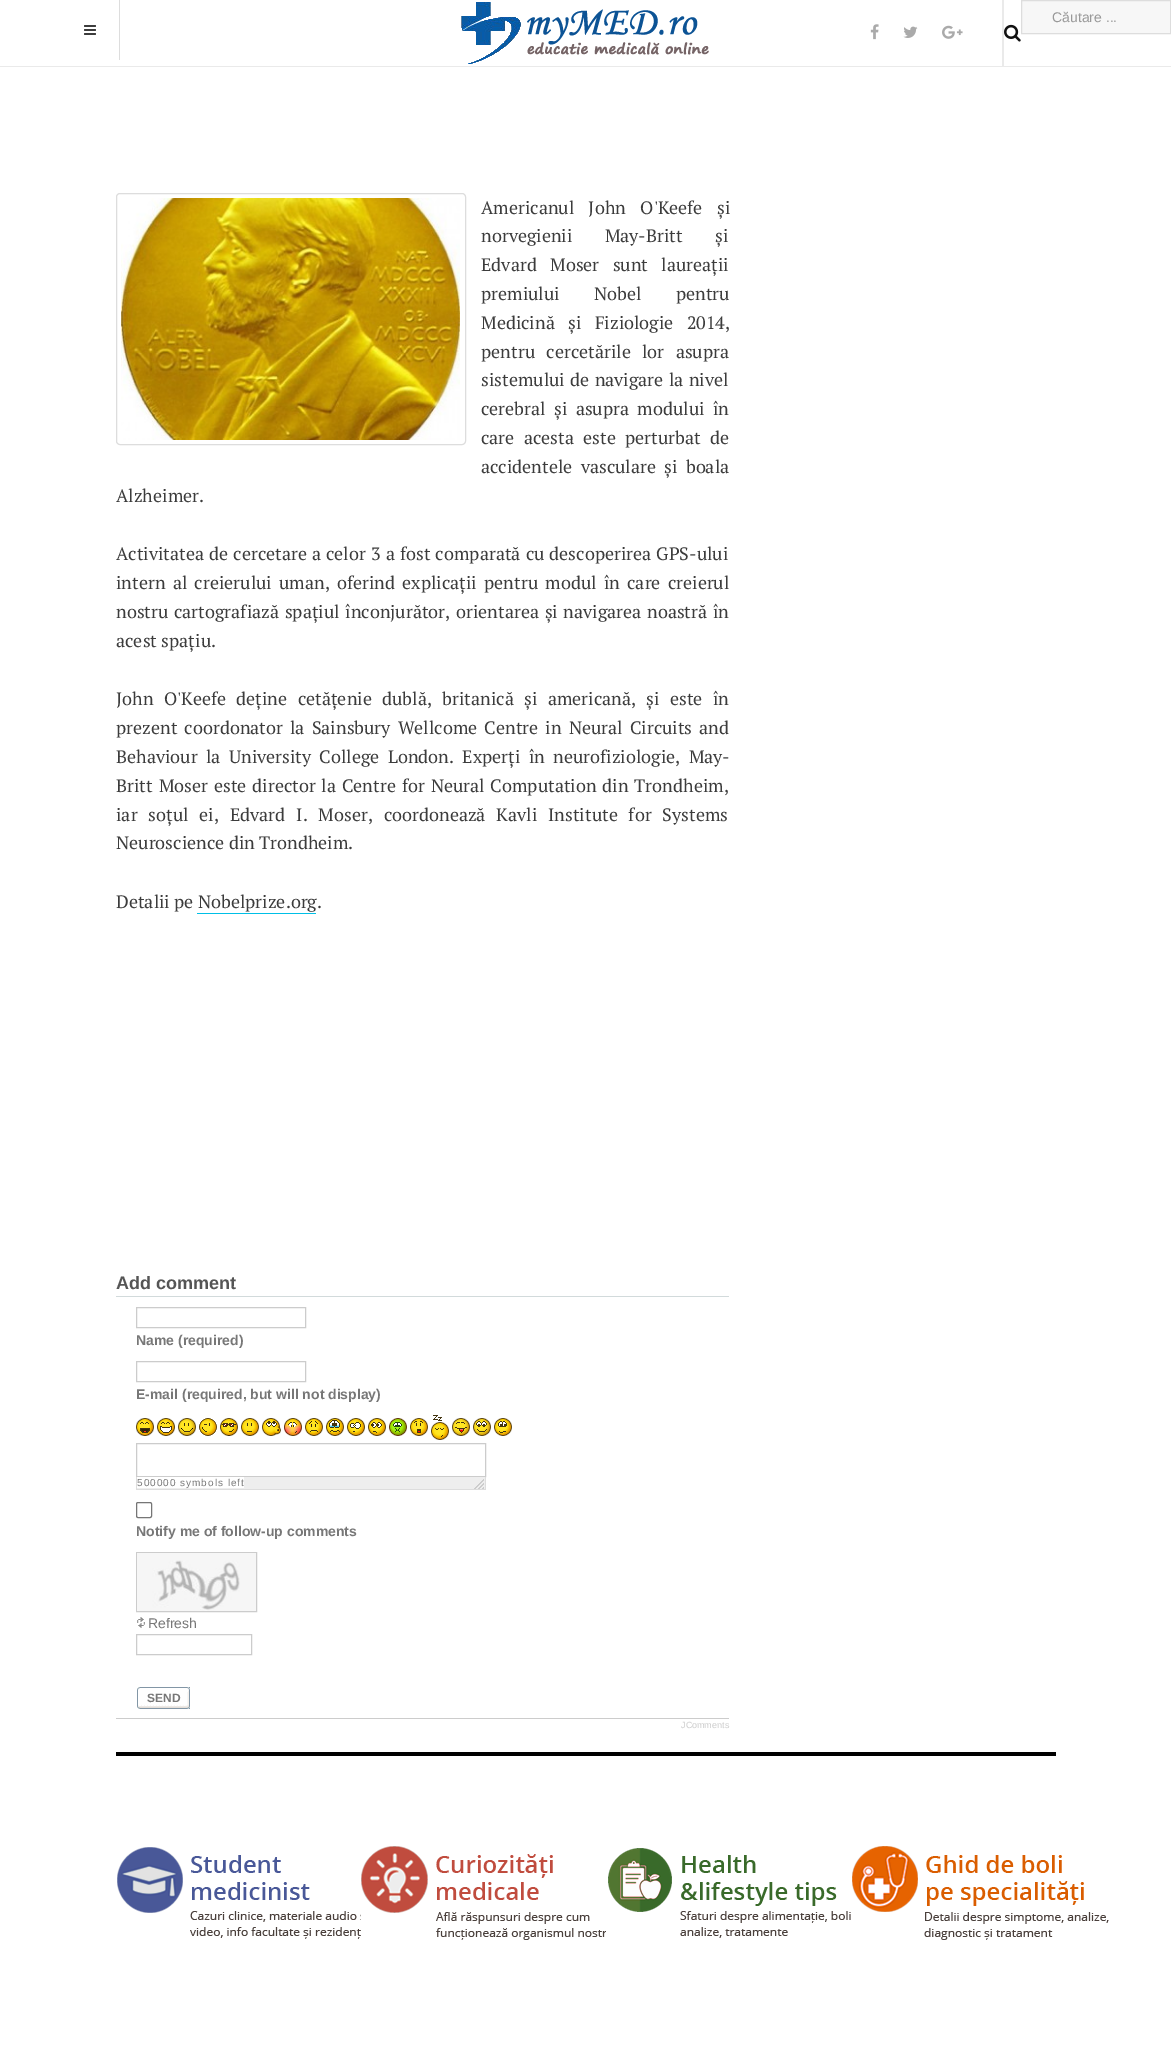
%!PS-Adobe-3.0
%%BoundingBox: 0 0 1171 2048
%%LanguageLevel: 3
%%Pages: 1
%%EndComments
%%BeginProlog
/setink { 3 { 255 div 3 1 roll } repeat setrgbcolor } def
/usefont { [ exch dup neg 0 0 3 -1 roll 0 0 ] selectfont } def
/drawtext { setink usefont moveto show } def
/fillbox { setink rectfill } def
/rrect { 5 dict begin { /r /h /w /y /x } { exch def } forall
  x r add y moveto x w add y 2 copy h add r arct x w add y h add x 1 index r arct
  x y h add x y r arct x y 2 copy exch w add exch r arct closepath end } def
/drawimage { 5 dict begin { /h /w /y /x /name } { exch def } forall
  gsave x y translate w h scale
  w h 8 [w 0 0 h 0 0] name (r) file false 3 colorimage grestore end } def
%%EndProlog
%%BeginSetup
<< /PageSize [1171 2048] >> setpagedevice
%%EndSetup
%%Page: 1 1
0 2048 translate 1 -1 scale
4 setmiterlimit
0 0 1171 2048 255 255 255 fillbox
119 0 1 60 221 221 221 fillbox
(assets/img1.rgb) 84 25 12 10 drawimage
0 66 1171 1 234 234 234 fillbox
(assets/img2.rgb) 461 2 248 62 drawimage
1002 0 2 66 234 234 234 fillbox
247 247 247 setink
1021.5 0.5 moveto 1170.5 0.5 lineto 1170.5 33.5 lineto 1021.5 33.5 lineto closepath gsave fill grestore
221 221 221 setink
stroke
(Căutare ...) 1052 22 /LiberationSans-Regular 14 153 153 153 drawtext
(assets/img3.rgb) 1004 24 17 18 drawimage
(assets/img4.rgb) 870 24 9 16 drawimage
(assets/img5.rgb) 903 26 15 12 drawimage
(assets/img6.rgb) 942 25 21 14 drawimage
221 221 221 setink
116.5 193.5 349 251 3.5 rrect stroke
(assets/img7.rgb) 121 198 339 242 drawimage
/PTSerif-Regular 18 usefont
60 60 60 setink
481 214 moveto 10 0 32 (Americanul John O'Keefe și) widthshow
481 242 moveto 28 0 32 (norvegienii May-Britt și) widthshow
481 271 moveto 9 0 32 (Edvard Moser sunt laureații) widthshow
481 300 moveto 30 0 32 (premiului Nobel pentru) widthshow
481 329 moveto 9 0 32 (Medicină și Fiziologie 2014,) widthshow
481 358 moveto 7 0 32 (pentru cercetările lor asupra) widthshow
481 386 moveto 1 0 32 (sistemului de navigare la nivel) widthshow
481 415 moveto 4 0 32 (cerebral și asupra modului în) widthshow
481 444 moveto 5 0 32 (care acesta este perturbat de) widthshow
481 473 moveto 4 0 32 (accidentele vasculare și boala) widthshow
(Alzheimer.) 116 502 /PTSerif-Regular 18 60 60 60 drawtext
116 560 moveto 0.75 0 32 (Activitatea de cercetare a celor 3 a fost comparată cu descoperirea GPS-ului) widthshow
116 589 moveto 2.9 0 32 (intern al creierului uman, oferind explicații pentru modul în care creierul) widthshow
116 618 moveto 1.25 0 32 (nostru cartografiază spațiul înconjurător, orientarea și navigarea noastră în) widthshow
(acest spațiu.) 116 647 /PTSerif-Regular 18 60 60 60 drawtext
116 705 moveto 6 0 32 (John O'Keefe deține cetățenie dublă, britanică și americană, și este în) widthshow
116 734 moveto 2.75 0 32 (prezent coordonator la Sainsbury Wellcome Centre in Neural Circuits and) widthshow
116 763 moveto 4 0 32 (Behaviour la University College London. Experți în neurofiziologie, May-) widthshow
116 792 moveto 1.5 0 32 (Britt Moser este director la Centre for Neural Computation din Trondheim,) widthshow
116 821 moveto 6.5 0 32 (iar soțul ei, Edvard I. Moser, coordonează Kavli Institute for Systems) widthshow
(Neuroscience din Trondheim.) 116 849 /PTSerif-Regular 18 60 60 60 drawtext
(Detalii pe Nobelprize.org.) 116 908 /PTSerif-Regular 18 60 60 60 drawtext
197 913 119 1 0 191 230 fillbox
116 1296 613 1 210 218 219 fillbox
(Add comment) 116 1289 /LiberationSans-Bold 18 85 85 85 drawtext
204 204 204 setink
136.5 1307.5 169 20 rectstroke
(Name \(required\)) 136 1345 /LiberationSans-Bold 14 119 119 119 drawtext
204 204 204 setink
136.5 1361.5 169 20 rectstroke
(E-mail \(required, but will not display\)) 136 1399 /LiberationSans-Bold 14 119 119 119 drawtext
(assets/img8.rgb) 136 1418 18 18 drawimage
(assets/img9.rgb) 157 1418 18 18 drawimage
(assets/img10.rgb) 178 1418 18 18 drawimage
(assets/img11.rgb) 199 1418 18 18 drawimage
(assets/img12.rgb) 220 1418 18 18 drawimage
(assets/img13.rgb) 241 1418 18 18 drawimage
(assets/img14.rgb) 262 1418 19 18 drawimage
(assets/img15.rgb) 284 1418 18 18 drawimage
(assets/img16.rgb) 305 1418 18 18 drawimage
(assets/img17.rgb) 326 1418 18 18 drawimage
(assets/img18.rgb) 347 1418 18 18 drawimage
(assets/img19.rgb) 368 1418 18 18 drawimage
(assets/img20.rgb) 389 1418 18 18 drawimage
(assets/img21.rgb) 410 1418 18 18 drawimage
(assets/img22.rgb) 431 1415 18 25 drawimage
(assets/img23.rgb) 452 1418 18 18 drawimage
(assets/img24.rgb) 473 1418 18 18 drawimage
(assets/img25.rgb) 494 1418 18 18 drawimage
204 204 204 setink
136.5 1443.5 349 33 rectstroke
137 1477 348 12 238 238 238 fillbox
(assets/img26.rgb) 474 1479 10 10 drawimage
485 1477 1 13 221 221 221 fillbox
136 1489 350 1 221 221 221 fillbox
136 1477 1 13 221 221 221 fillbox
137 1477 107 11 255 255 255 fillbox
/LiberationSans-Regular 10 usefont
119 119 119 setink
137 1486 moveto 1 0 (500000 symbols left) ashow
118 118 118 setink
136.5 1502.5 15 15 1.5 rrect stroke
(Notify me of follow-up comments) 136 1536 /LiberationSans-Bold 14 119 119 119 drawtext
204 204 204 setink
136.5 1552.5 120 59 rectstroke
(assets/img27.rgb) 137 1553 119 58 drawimage
(assets/img28.rgb) 137 1617 8 11 drawimage
(Refresh) 148 1628 /LiberationSans-Regular 14 119 119 119 drawtext
204 204 204 setink
136.5 1634.5 115 20 rectstroke
(assets/img29.rgb) 137 1687 53 22 drawimage
(assets/img30.rgb) 187 1687 3 22 drawimage
(SEND) 147 1702 /LiberationSans-Bold 12 119 119 119 drawtext
116 1718 613 1 204 204 204 fillbox
(JComments) 681 1728 /LiberationSans-Regular 9 204 204 204 drawtext
116 1752 940 4 0 0 0 fillbox
(assets/img31.rgb) 117 1847 244 92 drawimage
(assets/img32.rgb) 361 1846 245 94 drawimage
(assets/img33.rgb) 608 1848 243 90 drawimage
(assets/img34.rgb) 852 1846 257 94 drawimage
showpage
%%EOF
